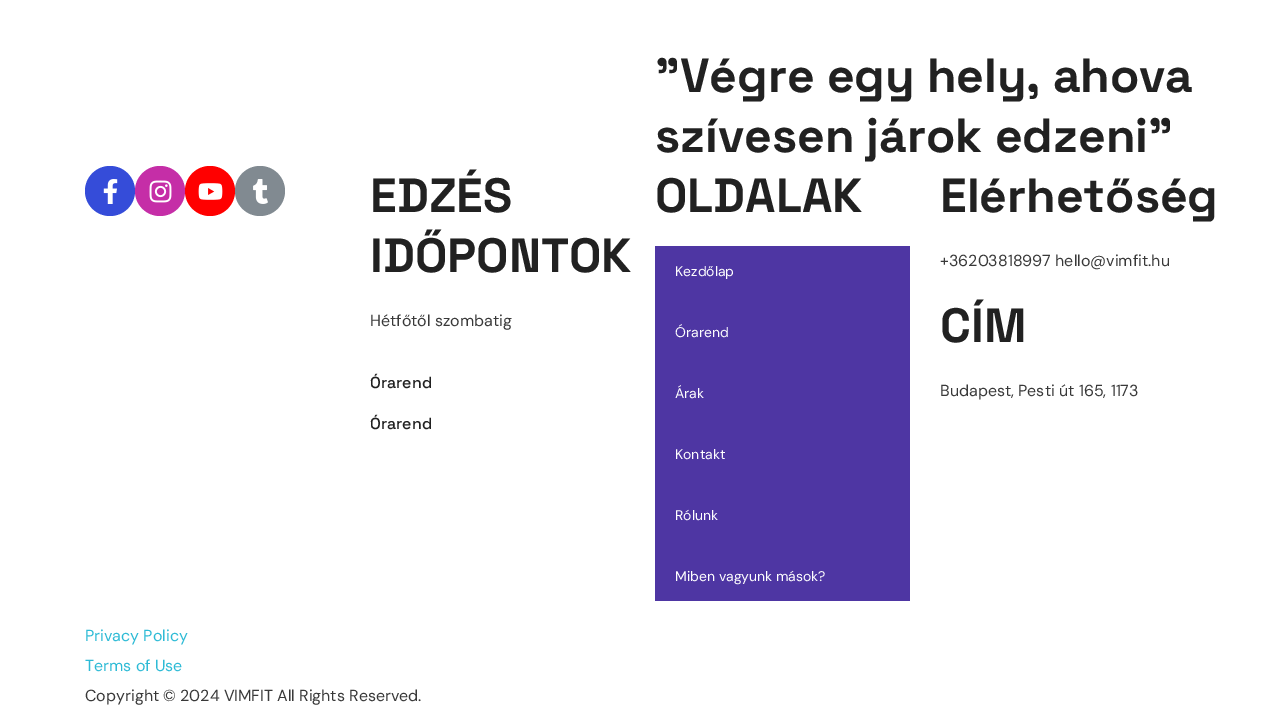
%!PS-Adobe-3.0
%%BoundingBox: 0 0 1280 711
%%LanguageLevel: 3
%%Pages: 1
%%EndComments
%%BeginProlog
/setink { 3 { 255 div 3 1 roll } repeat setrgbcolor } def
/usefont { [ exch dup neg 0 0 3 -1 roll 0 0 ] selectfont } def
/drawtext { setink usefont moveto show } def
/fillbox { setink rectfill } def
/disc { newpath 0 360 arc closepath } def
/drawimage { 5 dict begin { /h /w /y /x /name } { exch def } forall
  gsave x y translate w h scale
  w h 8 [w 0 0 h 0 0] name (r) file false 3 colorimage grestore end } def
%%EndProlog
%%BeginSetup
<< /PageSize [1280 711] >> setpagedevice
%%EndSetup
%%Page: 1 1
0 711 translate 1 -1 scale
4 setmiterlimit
0 0 1280 711 255 255 255 fillbox
("Végre egy hely, ahova) 655 92 /SpaceGrotesk-Bold 48 33 33 33 drawtext
(szívesen járok edzeni") 655 152 /SpaceGrotesk-Bold 48 33 33 33 drawtext
53 76 217 setink
110 191 25 disc fill
(assets/img1.rgb) 103 179 15 25 drawimage
197 46 167 setink
160 191 25 disc fill
(assets/img2.rgb) 149 180 23 23 drawimage
255 0 0 setink
210 191 25 disc fill
(assets/img3.rgb) 198 183 25 17 drawimage
129 138 145 setink
260 191 25 disc fill
(assets/img4.rgb) 253 179 15 25 drawimage
(EDZÉS) 370 212 /SpaceGrotesk-Bold 48 33 33 33 drawtext
(IDŐPONTOK) 370 272 /SpaceGrotesk-Bold 48 33 33 33 drawtext
(Hétfőtől szombatig) 370 326 /DMSans-Regular 16 57 57 57 drawtext
(Órarend) 370 388 /SpaceGrotesk-Medium 16 33 33 33 drawtext
(Órarend) 370 429 /SpaceGrotesk-Medium 16 33 33 33 drawtext
(OLDALAK) 655 212 /SpaceGrotesk-Bold 48 33 33 33 drawtext
655 246 255 355 78 54 163 fillbox
(Kezdőlap) 675 276 /DMSans-Regular 14 255 255 255 drawtext
(Órarend) 675 337 /DMSans-Regular 14 255 255 255 drawtext
(Árak) 675 398 /DMSans-Regular 14 255 255 255 drawtext
(Kontakt) 675 459 /DMSans-Regular 14 255 255 255 drawtext
(Rólunk) 675 520 /DMSans-Regular 14 255 255 255 drawtext
(Miben vagyunk mások?) 675 581 /DMSans-Regular 14 255 255 255 drawtext
(Elérhetőség) 940 212 /SpaceGrotesk-Bold 48 33 33 33 drawtext
(+36203818997 hello@vimfit.hu) 940 266 /DMSans-Regular 16 57 57 57 drawtext
(CÍM) 940 342 /SpaceGrotesk-Bold 48 33 33 33 drawtext
(Budapest, Pesti út 165, 1173) 940 396 /DMSans-Regular 16 57 57 57 drawtext
(Privacy Policy) 85 641 /DMSans-Regular 16 46 187 214 drawtext
(Terms of Use) 85 671 /DMSans-Regular 16 46 187 214 drawtext
(Copyright © 2024 VIMFIT All Rights Reserved.) 85 701 /DMSans-Regular 16 57 57 57 drawtext
showpage
%%EOF
